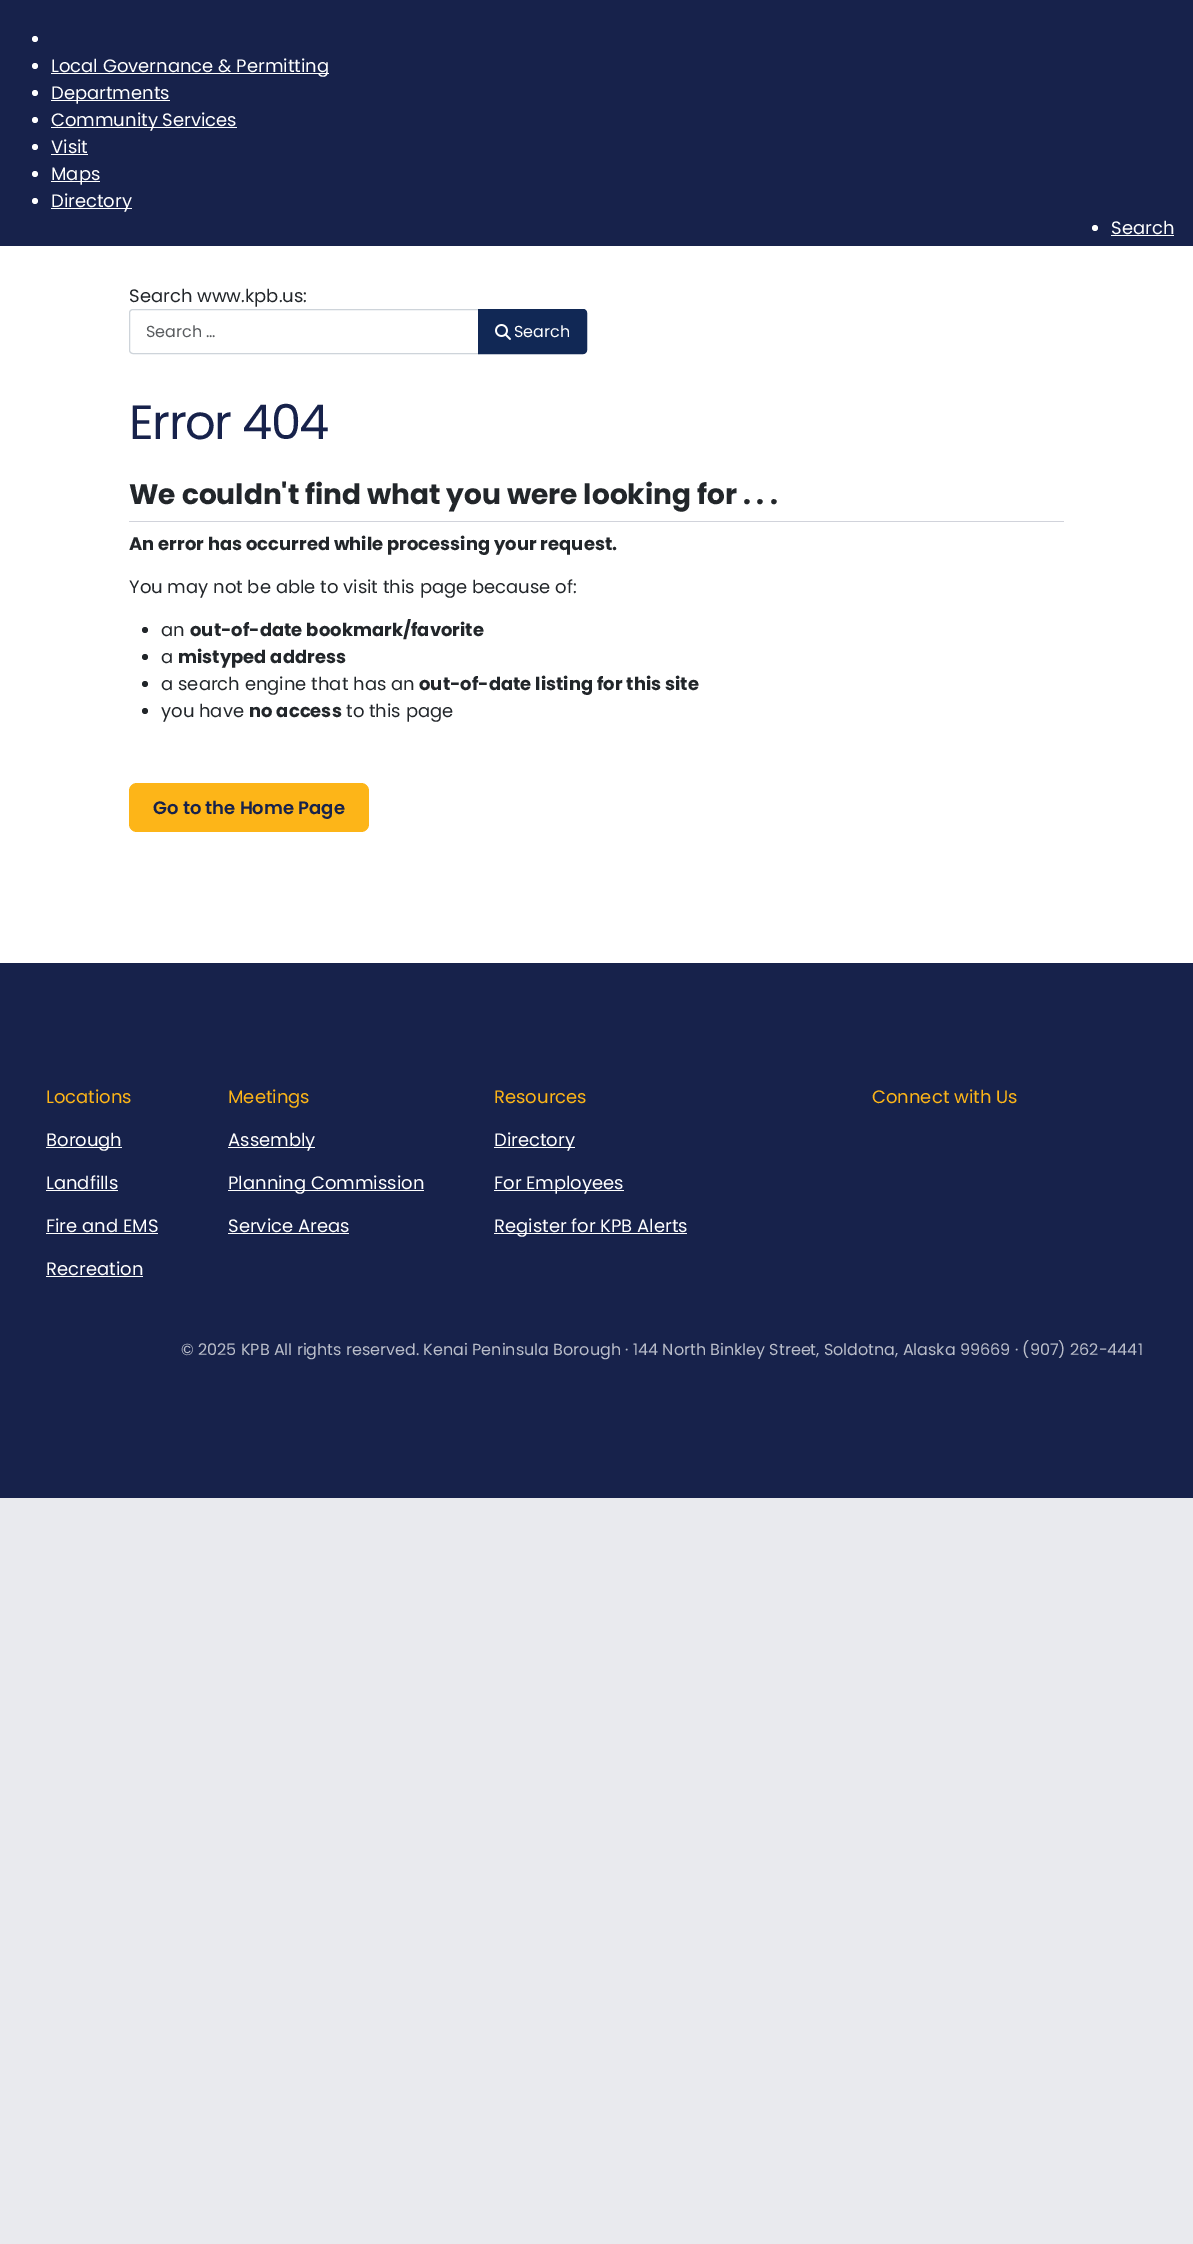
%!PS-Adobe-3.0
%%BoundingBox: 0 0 1193 2244
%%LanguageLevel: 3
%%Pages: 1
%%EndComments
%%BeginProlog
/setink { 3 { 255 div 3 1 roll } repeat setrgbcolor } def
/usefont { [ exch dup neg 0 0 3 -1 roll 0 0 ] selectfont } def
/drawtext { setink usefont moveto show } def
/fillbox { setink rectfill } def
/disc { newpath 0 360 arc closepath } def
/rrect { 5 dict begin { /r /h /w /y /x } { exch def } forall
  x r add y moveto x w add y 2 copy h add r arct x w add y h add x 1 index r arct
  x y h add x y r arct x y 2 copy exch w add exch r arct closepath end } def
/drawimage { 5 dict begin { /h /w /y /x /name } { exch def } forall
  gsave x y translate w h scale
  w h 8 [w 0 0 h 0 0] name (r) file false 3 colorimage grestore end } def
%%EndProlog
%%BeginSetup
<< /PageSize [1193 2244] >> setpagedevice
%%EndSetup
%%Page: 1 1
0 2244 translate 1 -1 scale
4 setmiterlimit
0 0 1193 2244 233 234 238 fillbox
0 0 1193 246 23 34 75 fillbox
255 255 255 setink
35 39 3 disc fill
35 66 3 disc fill
51 73 278 1 255 255 255 fillbox
(Local Governance & Permitting) 51 72 /Poppins-Regular 18 255 255 255 drawtext
35 93 3 disc fill
51 100 119 1 255 255 255 fillbox
(Departments) 51 99 /Poppins-Regular 18 255 255 255 drawtext
35 120 3 disc fill
51 127 186 1 255 255 255 fillbox
(Community Services) 51 126 /Poppins-Regular 18 255 255 255 drawtext
35 147 3 disc fill
(Visit) 51 153 /Poppins-Regular 18 255 255 255 drawtext
51 154 37 1 255 255 255 fillbox
35 174 3 disc fill
51 181 49 1 255 255 255 fillbox
(Maps) 51 180 /Poppins-Regular 18 255 255 255 drawtext
35 201 3 disc fill
51 208 81 1 255 255 255 fillbox
(Directory) 51 207 /Poppins-Regular 18 255 255 255 drawtext
1095 228 3 disc fill
(Search) 1111 234 /Poppins-Regular 18 255 255 255 drawtext
1111 235 63 1 255 255 255 fillbox
0 246 1193 717 255 255 255 fillbox
(Search www.kpb.us:) 129 302 /Poppins-Regular 18 34 38 42 drawtext
206 212 218 setink
133 309.5 moveto 478.5 309.5 lineto 478.5 353.5 lineto 133 353.5 lineto 131 353.5 129.5 352 129.5 350 curveto 129.5 313 lineto 129.5 311 131 309.5 133 309.5 curveto closepath stroke
(Search …) 146 337 /Poppins-Regular 16 89 92 95 drawtext
17 40 85 setink
478.5 309.5 moveto 583 309.5 lineto 585 309.5 586.5 311 586.5 313 curveto 586.5 350 lineto 586.5 352 585 353.5 583 353.5 curveto 478.5 353.5 lineto closepath gsave fill grestore
stroke
(assets/img1.rgb) 495 324 16 16 drawimage
(Search) 514 337 /Poppins-Regular 16 255 255 255 drawtext
/Poppins-Regular 48 usefont
23 34 75 setink
129 439 moveto -1.5 0 (Error 404) ashow
(We couldn't find what you were looking for . . .) 129 504 /Poppins-Bold 28 34 38 42 drawtext
129 521 935 1 209 211 219 fillbox
(An error has occurred while processing your request.) 129 550 /Poppins-Bold 18 34 38 42 drawtext
(You may not be able to visit this page because of:) 129 593 /Poppins-Regular 18 34 38 42 drawtext
145 630 3 disc fill
(an) 161 636 /Poppins-Regular 18 34 38 42 drawtext
(out-of-date bookmark/favorite) 190 636 /Poppins-Bold 18 34 38 42 drawtext
145 657 3 disc fill
(a) 161 663 /Poppins-Regular 18 34 38 42 drawtext
(mistyped address) 178 663 /Poppins-Bold 18 34 38 42 drawtext
145 684 3 disc fill
(a search engine that has an) 161 690 /Poppins-Regular 18 34 38 42 drawtext
(out-of-date listing for this site) 419 690 /Poppins-Bold 18 34 38 42 drawtext
145 711 3 disc fill
(you have) 161 717 /Poppins-Regular 18 34 38 42 drawtext
(no access) 249 717 /Poppins-Bold 18 34 38 42 drawtext
(to this page) 346 717 /Poppins-Regular 18 34 38 42 drawtext
253 181 24 setink
129 783 240 49 8 rrect fill
(Go to the Home Page) 153 814 /Poppins-SemiBold 18 23 34 75 drawtext
0 963 1193 535 23 34 75 fillbox
(Locations) 46 1103 /Poppins-Regular 18 253 181 24 drawtext
46 1147 76 1 255 255 255 fillbox
(Borough) 46 1146 /Poppins-Regular 18 255 255 255 drawtext
(Landfills) 46 1189 /Poppins-Regular 18 255 255 255 drawtext
46 1190 72 1 255 255 255 fillbox
(Fire and EMS) 46 1232 /Poppins-Regular 18 255 255 255 drawtext
46 1233 112 1 255 255 255 fillbox
(Recreation) 46 1275 /Poppins-Regular 18 255 255 255 drawtext
46 1276 97 1 255 255 255 fillbox
(Meetings) 228 1103 /Poppins-Regular 18 253 181 24 drawtext
228 1147 87 1 255 255 255 fillbox
(Assembly) 228 1146 /Poppins-Regular 18 255 255 255 drawtext
228 1190 196 1 255 255 255 fillbox
(Planning Commission) 228 1189 /Poppins-Regular 18 255 255 255 drawtext
(Service Areas) 228 1232 /Poppins-Regular 18 255 255 255 drawtext
228 1233 121 1 255 255 255 fillbox
(Resources) 494 1103 /Poppins-Regular 18 253 181 24 drawtext
494 1147 81 1 255 255 255 fillbox
(Directory) 494 1146 /Poppins-Regular 18 255 255 255 drawtext
494 1190 130 1 255 255 255 fillbox
(For Employees) 494 1189 /Poppins-Regular 18 255 255 255 drawtext
494 1233 193 1 255 255 255 fillbox
(Register for KPB Alerts) 494 1232 /Poppins-Regular 18 255 255 255 drawtext
(Connect with Us) 872 1103 /Poppins-Regular 18 253 181 24 drawtext
(© 2025 KPB All rights reserved. Kenai Peninsula Borough · 144 North Binkley Street, Soldotna, Alaska 99669 · \(907\) 262-4441) 181 1355 /Poppins-Regular 16 185 189 201 drawtext
showpage
%%EOF
